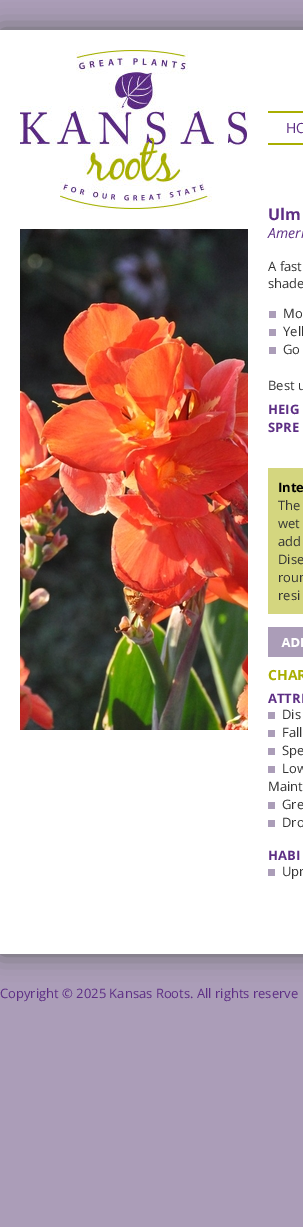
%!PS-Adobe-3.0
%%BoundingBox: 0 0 303 1227
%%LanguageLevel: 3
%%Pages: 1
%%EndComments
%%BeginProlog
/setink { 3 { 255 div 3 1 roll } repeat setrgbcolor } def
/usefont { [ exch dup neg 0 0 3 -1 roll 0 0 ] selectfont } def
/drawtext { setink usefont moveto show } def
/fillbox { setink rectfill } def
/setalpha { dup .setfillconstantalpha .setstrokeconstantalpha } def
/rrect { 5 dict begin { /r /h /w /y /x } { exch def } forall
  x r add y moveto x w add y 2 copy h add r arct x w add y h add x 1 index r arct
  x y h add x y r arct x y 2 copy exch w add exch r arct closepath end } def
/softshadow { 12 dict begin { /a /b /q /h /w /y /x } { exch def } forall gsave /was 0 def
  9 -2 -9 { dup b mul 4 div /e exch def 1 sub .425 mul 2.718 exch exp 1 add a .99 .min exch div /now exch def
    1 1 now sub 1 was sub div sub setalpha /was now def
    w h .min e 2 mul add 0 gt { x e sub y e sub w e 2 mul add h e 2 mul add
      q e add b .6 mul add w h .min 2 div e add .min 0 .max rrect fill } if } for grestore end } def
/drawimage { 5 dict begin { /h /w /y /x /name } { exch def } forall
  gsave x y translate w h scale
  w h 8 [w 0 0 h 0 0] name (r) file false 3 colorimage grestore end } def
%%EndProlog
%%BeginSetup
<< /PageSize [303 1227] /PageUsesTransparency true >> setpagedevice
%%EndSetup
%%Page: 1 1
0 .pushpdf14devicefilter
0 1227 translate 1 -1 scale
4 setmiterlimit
0 0 303 1227 171 157 184 fillbox
102 102 102 setink
0 30 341 924 0 12.5 1 softshadow
0 30 303 924 255 255 255 fillbox
(assets/img1.rgb) 20 50 228 159 drawimage
268 111 35 2 169 174 0 fillbox
268 143 35 2 169 174 0 fillbox
(HO) 286 133 /OpenSans-Regular 14 93 46 132 drawtext
(Ulm) 268 220 /OpenSans-Bold 16 93 46 132 drawtext
(Ameri) 268 238 /OpenSans-Italic 14 93 46 132 drawtext
(A fast) 268 271 /OpenSans-Regular 13 51 51 51 drawtext
(shade) 268 288 /OpenSans-Regular 13 51 51 51 drawtext
269 311 7 7 171 157 184 fillbox
(Mo) 283 318 /OpenSans-Regular 13 51 51 51 drawtext
269 329 7 7 171 157 184 fillbox
(Yell) 283 336 /OpenSans-Regular 13 51 51 51 drawtext
269 347 7 7 171 157 184 fillbox
(Go) 283 354 /OpenSans-Regular 13 51 51 51 drawtext
(Best u) 268 390 /OpenSans-Regular 13 51 51 51 drawtext
(HEIG) 268 414 /OpenSans-Bold 13 93 46 132 drawtext
(SPRE) 268 432 /OpenSans-Bold 13 93 46 132 drawtext
268 468 35 146 212 214 127 fillbox
(Inte) 278 492 /OpenSans-Bold 13 0 0 0 drawtext
(The) 278 510 /OpenSans-Regular 13 51 51 51 drawtext
(wet) 278 528 /OpenSans-Regular 13 51 51 51 drawtext
(add) 278 546 /OpenSans-Regular 13 51 51 51 drawtext
(Dise) 278 564 /OpenSans-Regular 13 51 51 51 drawtext
(roun) 278 582 /OpenSans-Regular 13 51 51 51 drawtext
(resi) 278 600 /OpenSans-Regular 13 51 51 51 drawtext
(assets/img2.rgb) 268 627 35 30 drawimage
(CHAR) 268 680 /OpenSans-Bold 14 169 174 0 drawtext
(ATTRI) 268 703 /OpenSans-Bold 13 93 46 132 drawtext
268 712 7 7 171 157 184 fillbox
(Dis) 282 719 /OpenSans-Regular 13 51 51 51 drawtext
268 730 7 7 171 157 184 fillbox
(Fall) 282 737 /OpenSans-Regular 13 51 51 51 drawtext
268 748 7 7 171 157 184 fillbox
(Spe) 282 755 /OpenSans-Regular 13 51 51 51 drawtext
268 766 7 7 171 157 184 fillbox
(Low) 282 773 /OpenSans-Regular 13 51 51 51 drawtext
(Maint) 268 791 /OpenSans-Regular 13 51 51 51 drawtext
268 802 7 7 171 157 184 fillbox
(Gre) 282 809 /OpenSans-Regular 13 51 51 51 drawtext
268 820 7 7 171 157 184 fillbox
(Dro) 282 827 /OpenSans-Regular 13 51 51 51 drawtext
(HABI) 268 860 /OpenSans-Bold 13 93 46 132 drawtext
268 869 7 7 171 157 184 fillbox
(Upr) 282 876 /OpenSans-Regular 13 51 51 51 drawtext
(assets/img3.rgb) 20 229 228 501 drawimage
(Copyright © 2025 Kansas Roots. All rights reserve) 0 998 /OpenSans-Regular 13 93 46 132 drawtext
.poppdf14devicefilter showpage
%%EOF
